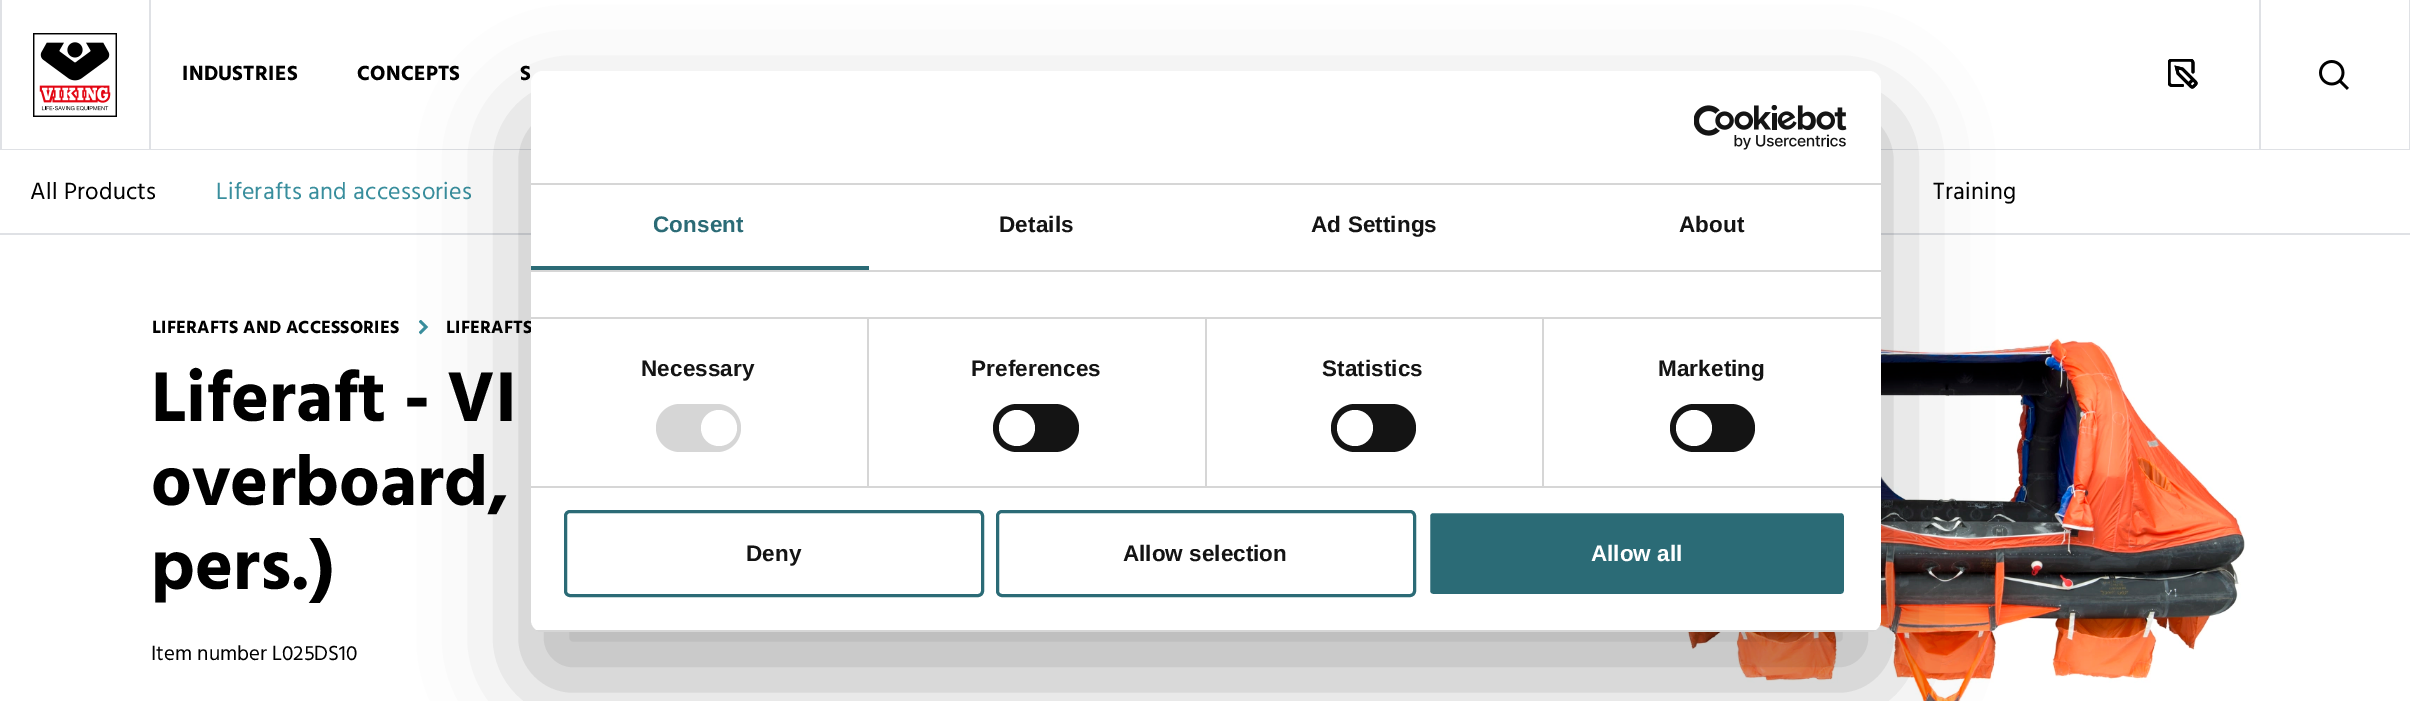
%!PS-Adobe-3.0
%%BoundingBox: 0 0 2410 701
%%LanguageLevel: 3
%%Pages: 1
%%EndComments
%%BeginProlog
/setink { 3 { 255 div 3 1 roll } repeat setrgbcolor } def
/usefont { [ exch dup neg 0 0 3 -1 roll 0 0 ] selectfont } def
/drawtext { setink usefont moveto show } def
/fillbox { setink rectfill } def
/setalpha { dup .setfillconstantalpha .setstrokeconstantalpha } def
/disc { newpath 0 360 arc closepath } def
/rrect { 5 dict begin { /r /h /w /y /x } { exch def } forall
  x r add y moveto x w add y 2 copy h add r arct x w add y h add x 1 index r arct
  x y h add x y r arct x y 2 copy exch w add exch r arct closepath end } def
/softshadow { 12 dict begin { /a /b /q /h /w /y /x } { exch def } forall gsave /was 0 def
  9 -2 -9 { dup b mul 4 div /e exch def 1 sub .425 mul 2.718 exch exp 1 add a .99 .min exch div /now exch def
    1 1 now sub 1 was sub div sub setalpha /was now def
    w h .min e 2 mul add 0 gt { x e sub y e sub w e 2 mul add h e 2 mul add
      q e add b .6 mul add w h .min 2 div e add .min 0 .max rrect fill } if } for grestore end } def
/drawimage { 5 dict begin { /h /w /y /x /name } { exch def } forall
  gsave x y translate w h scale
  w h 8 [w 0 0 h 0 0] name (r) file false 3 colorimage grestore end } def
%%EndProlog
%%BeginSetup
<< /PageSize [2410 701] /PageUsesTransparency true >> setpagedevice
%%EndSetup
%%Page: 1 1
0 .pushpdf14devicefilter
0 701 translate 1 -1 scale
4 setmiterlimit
0 0 2410 701 255 255 255 fillbox
0 149 2410 1 223 225 229 fillbox
149 0 2 149 223 225 229 fillbox
(assets/img1.rgb) 33 33 84 84 drawimage
2259 0 2 149 223 225 229 fillbox
(assets/img2.rgb) 2168 59 30 30 drawimage
0 0 2 149 223 225 229 fillbox
/Hind-Bold 21 usefont
0 0 0 setink
182 80 moveto 0.25 0 (INDUSTRIES) ashow
357 80 moveto 0.25 0 (CONCEPTS) ashow
520 80 moveto 0.25 0 (S) ashow
0 233 2410 2 223 225 229 fillbox
/Hind-Regular 24 usefont
0 0 0 setink
30 199 moveto 0.25 0 (All Products) ashow
57 142 157 setink
216 199 moveto 0.25 0 (Liferafts and accessories) ashow
0 0 0 setink
1933 199 moveto 0.25 0 (Training) ashow
2409 0 1 149 223 225 229 fillbox
(assets/img3.rgb) 2319 60 30 30 drawimage
/Hind-Bold 18 usefont
0 0 0 setink
152 333 moveto 0.2 0 (LIFERAFTS AND ACCESSORIES) ashow
(assets/img4.rgb) 419 320 10 15 drawimage
446 333 moveto 0.2 0 (LIFERAFTS) ashow
(Liferaft - VI) 151 421 /Hind-Bold 72 0 0 0 drawtext
(overboard,) 151 505 /Hind-Bold 72 0 0 0 drawtext
(pers.\)) 151 589 /Hind-Bold 72 0 0 0 drawtext
(Item number L025DS10) 151 660 /Hind-Regular 21 0 0 0 drawtext
(assets/img5.rgb) 1645 338 600 363 drawimage
531 119 1350 561 12 51 0.3 softshadow
255 255 255 setink
531 71 1350 561 12 rrect fill
531 183 1350 2 214 214 214 fillbox
(assets/img6.rgb) 1694 105 153 45 drawimage
531 270 1350 2 214 214 214 fillbox
531 266 338 4 43 107 118 fillbox
/LiberationSans-Bold 22.5 usefont
653 232 moveto 0.1 0 (Consent) ashow
20 20 20 setink
999 232 moveto 0.1 0 (Details) ashow
1311 232 moveto 0.1 0 (Ad Settings) ashow
1679 232 moveto 0.1 0 (About) ashow
867 318 2 168 214 214 214 fillbox
1205 318 2 168 214 214 214 fillbox
1542 318 2 168 214 214 214 fillbox
531 317 1350 2 214 214 214 fillbox
531 486 1350 2 214 214 214 fillbox
20 20 20 setink
641 376 moveto 0.1 0 (Necessary) ashow
214 214 214 setink
656 404 85 48 24 rrect fill
255 255 255 setink
719 428 18 disc fill
20 20 20 setink
971 376 moveto 0.1 0 (Preferences) ashow
993 404 86 48 24 rrect fill
255 255 255 setink
1017 428 18 disc fill
20 20 20 setink
1322 376 moveto 0.1 0 (Statistics) ashow
1331 404 85 48 24 rrect fill
255 255 255 setink
1355 428 18 disc fill
20 20 20 setink
1658 376 moveto 0.1 0 (Marketing) ashow
1670 404 85 48 24 rrect fill
255 255 255 setink
1694 428 18 disc fill
gsave
531 71 1350 561 12 rrect clip newpath
531 630 1350 2 214 214 214 fillbox
grestore
43 107 118 setink
3 setlinewidth
565.5 511.5 417 84 4.5 rrect stroke
(Deny) 746 561 /LiberationSans-Bold 22.5 20 20 20 drawtext
43 107 118 setink
997.5 511.5 417 84 4.5 rrect stroke
(Allow selection) 1123 561 /LiberationSans-Bold 22.5 20 20 20 drawtext
43 107 118 setink
1428.5 511.5 417 84 4.5 rrect gsave fill grestore
255 255 255 setink
stroke
(Allow all) 1591 561 /LiberationSans-Bold 22.5 255 255 255 drawtext
.poppdf14devicefilter showpage
%%EOF
